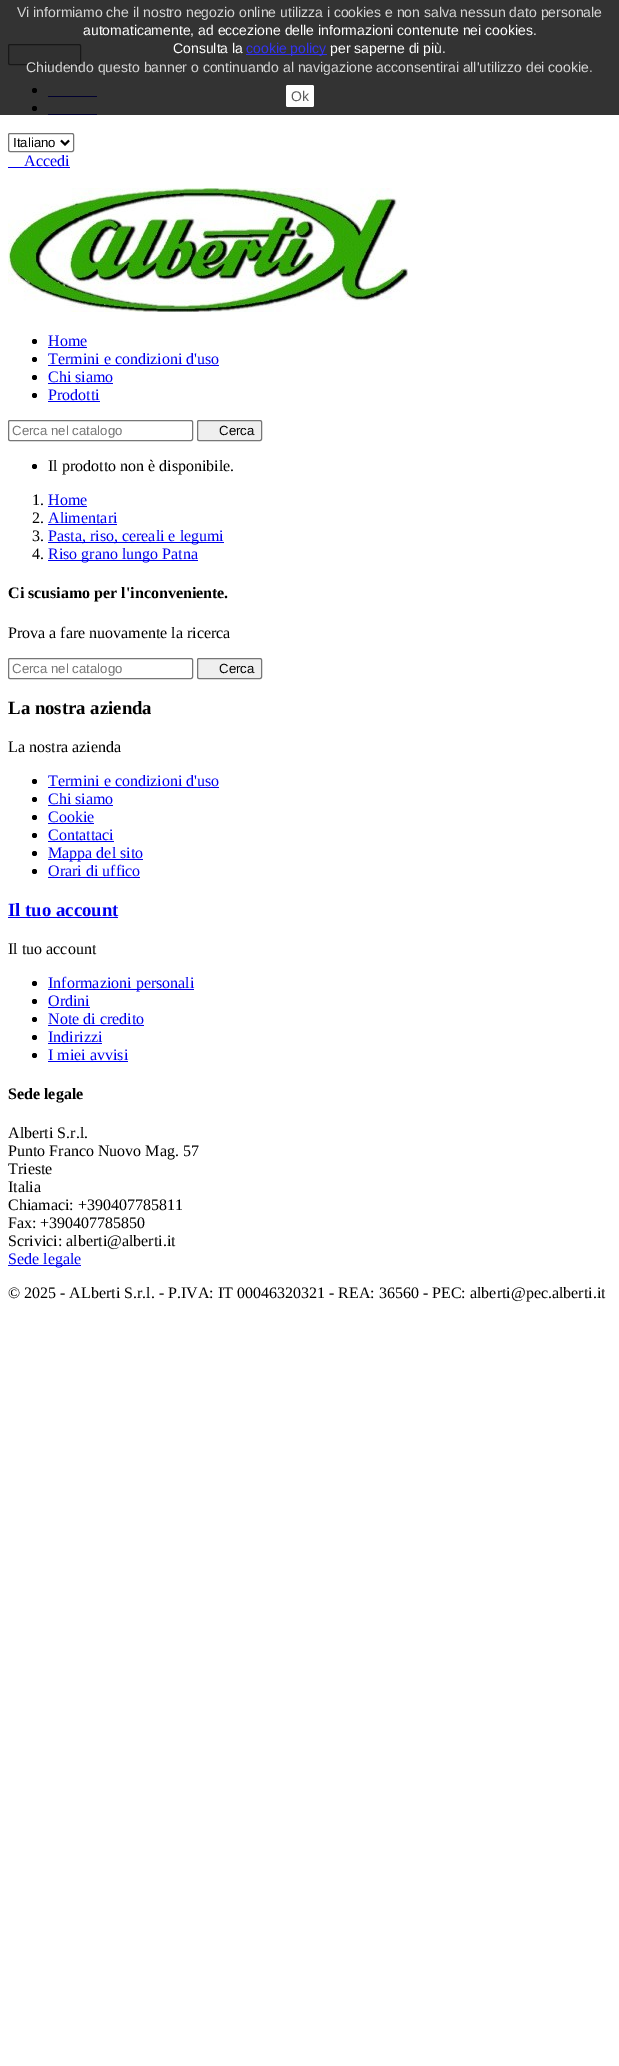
%!PS-Adobe-3.0
%%BoundingBox: 0 0 619 2066
%%LanguageLevel: 3
%%Pages: 1
%%EndComments
%%BeginProlog
/setink { 3 { 255 div 3 1 roll } repeat setrgbcolor } def
/usefont { [ exch dup neg 0 0 3 -1 roll 0 0 ] selectfont } def
/drawtext { setink usefont moveto show } def
/fillbox { setink rectfill } def
/setalpha { dup .setfillconstantalpha .setstrokeconstantalpha } def
/disc { newpath 0 360 arc closepath } def
/rrect { 5 dict begin { /r /h /w /y /x } { exch def } forall
  x r add y moveto x w add y 2 copy h add r arct x w add y h add x 1 index r arct
  x y h add x y r arct x y 2 copy exch w add exch r arct closepath end } def
/drawimage { 5 dict begin { /h /w /y /x /name } { exch def } forall
  gsave x y translate w h scale
  w h 8 [w 0 0 h 0 0] name (r) file false 3 colorimage grestore end } def
%%EndProlog
%%BeginSetup
<< /PageSize [619 2066] /PageUsesTransparency true >> setpagedevice
%%EndSetup
%%Page: 1 1
0 .pushpdf14devicefilter
0 2066 translate 1 -1 scale
4 setmiterlimit
0 0 619 2066 255 255 255 fillbox
239 239 239 setink
8.5 44.5 72 20 1.5 rrect gsave fill grestore
118 118 118 setink
stroke
0 0 0 setink
34.5 90.5 2.5 disc fill
48 96 49 1 0 0 238 fillbox
0 0 0 setink
34.5 108.5 2.5 disc fill
48 114 49 1 0 0 238 fillbox
0.8 setalpha
0 0 619 115 0 0 0 fillbox
1 setalpha
(Vi informiamo che il nostro negozio online utilizza i cookies e non salva nessun dato personale) 17 17 /LiberationSans-Regular 14 214 214 214 drawtext
(automaticamente, ad eccezione delle informazioni contenute nei cookies.) 83 35 /LiberationSans-Regular 14 255 255 255 drawtext
(Consulta la) 173 53 /LiberationSans-Regular 14 255 255 255 drawtext
246 54 81 1 51 51 241 fillbox
(cookie policy) 246 53 /LiberationSans-Regular 14 51 51 241 drawtext
(per saperne di più.) 330 53 /LiberationSans-Regular 14 255 255 255 drawtext
(Chiudendo questo banner o continuando al navigazione acconsentirai all'utilizzo dei cookie.) 26 72 /LiberationSans-Regular 14 214 214 214 drawtext
255 255 255 setink
286 85 28 22 2 rrect fill
(Ok) 291 101 /LiberationSans-Regular 14 92 92 92 drawtext
(La nostra azienda) 8 714 /LiberationSerif-Bold 18.75 0 0 0 drawtext
(La nostra azienda) 8 752 /LiberationSerif-Regular 16 0 0 0 drawtext
34.5 781.5 2.5 disc fill
(Termini e condizioni d'uso) 48 786 /LiberationSerif-Regular 16 0 0 238 drawtext
48 787 171 1 0 0 238 fillbox
0 0 0 setink
34.5 799.5 2.5 disc fill
(Chi siamo) 48 804 /LiberationSerif-Regular 16 0 0 238 drawtext
48 805 65 1 0 0 238 fillbox
0 0 0 setink
34.5 817.5 2.5 disc fill
(Cookie) 48 822 /LiberationSerif-Regular 16 0 0 238 drawtext
48 823 46 1 0 0 238 fillbox
0 0 0 setink
34.5 835.5 2.5 disc fill
(Contattaci) 48 840 /LiberationSerif-Regular 16 0 0 238 drawtext
48 841 66 1 0 0 238 fillbox
0 0 0 setink
34.5 853.5 2.5 disc fill
48 859 95 1 0 0 238 fillbox
(Mappa del sito) 48 858 /LiberationSerif-Regular 16 0 0 238 drawtext
0 0 0 setink
34.5 871.5 2.5 disc fill
(Orari di uffico) 48 876 /LiberationSerif-Regular 16 0 0 238 drawtext
48 877 92 1 0 0 238 fillbox
(Il tuo account) 8 916 /LiberationSerif-Bold 18.75 0 0 238 drawtext
8 917 110 1 0 0 238 fillbox
(Il tuo account) 8 954 /LiberationSerif-Regular 16 0 0 0 drawtext
34.5 983.5 2.5 disc fill
48 989 146 1 0 0 238 fillbox
(Informazioni personali) 48 988 /LiberationSerif-Regular 16 0 0 238 drawtext
0 0 0 setink
34.5 1001.5 2.5 disc fill
(Ordini) 48 1006 /LiberationSerif-Regular 16 0 0 238 drawtext
48 1007 42 1 0 0 238 fillbox
0 0 0 setink
34.5 1019.5 2.5 disc fill
(Note di credito) 48 1024 /LiberationSerif-Regular 16 0 0 238 drawtext
48 1025 96 1 0 0 238 fillbox
0 0 0 setink
34.5 1037.5 2.5 disc fill
(Indirizzi) 48 1042 /LiberationSerif-Regular 16 0 0 238 drawtext
48 1043 54 1 0 0 238 fillbox
0 0 0 setink
34.5 1055.5 2.5 disc fill
(I miei avvisi) 48 1060 /LiberationSerif-Regular 16 0 0 238 drawtext
48 1061 80 1 0 0 238 fillbox
(Sede legale) 8 1099 /LiberationSerif-Bold 16 0 0 0 drawtext
(Alberti S.r.l.) 8 1138 /LiberationSerif-Regular 16 0 0 0 drawtext
(Punto Franco Nuovo Mag. 57) 8 1156 /LiberationSerif-Regular 16 0 0 0 drawtext
(Trieste) 8 1174 /LiberationSerif-Regular 16 0 0 0 drawtext
(Italia) 8 1192 /LiberationSerif-Regular 16 0 0 0 drawtext
(Chiamaci: +390407785811) 8 1210 /LiberationSerif-Regular 16 0 0 0 drawtext
(Fax: +390407785850) 8 1228 /LiberationSerif-Regular 16 0 0 0 drawtext
(Scrivici: alberti@alberti.it) 8 1246 /LiberationSerif-Regular 16 0 0 0 drawtext
8 1265 73 1 0 0 238 fillbox
(Sede legale) 8 1264 /LiberationSerif-Regular 16 0 0 238 drawtext
(© 2025 - ALberti S.r.l. - P.IVA: IT 00046320321 - REA: 36560 - PEC: alberti@pec.alberti.it) 8 1298 /LiberationSerif-Regular 16 0 0 0 drawtext
118 118 118 setink
8.5 133.5 65 18 1.5 rrect stroke
0 0 0 setink
2 setlinewidth
61 140.5 moveto 65 144.5 lineto 69 140.5 lineto stroke
(Italiano) 13 147 /LiberationSans-Regular 13.25 0 0 0 drawtext
(Accedi) 24 166 /LiberationSerif-Regular 16 0 0 238 drawtext
8 167 62 1 0 0 238 fillbox
(assets/img1.rgb) 8 188 400 124 drawimage
0 0 0 setink
34.5 341.5 2.5 disc fill
(Home) 48 346 /LiberationSerif-Regular 16 0 0 238 drawtext
48 347 39 1 0 0 238 fillbox
0 0 0 setink
34.5 359.5 2.5 disc fill
(Termini e condizioni d'uso) 48 364 /LiberationSerif-Regular 16 0 0 238 drawtext
48 365 171 1 0 0 238 fillbox
0 0 0 setink
34.5 377.5 2.5 disc fill
(Chi siamo) 48 382 /LiberationSerif-Regular 16 0 0 238 drawtext
48 383 65 1 0 0 238 fillbox
0 0 0 setink
34.5 395.5 2.5 disc fill
(Prodotti) 48 400 /LiberationSerif-Regular 16 0 0 238 drawtext
48 401 52 1 0 0 238 fillbox
118 118 118 setink
1 setlinewidth
8.5 420.5 184 20 1.5 rrect stroke
(Cerca nel catalogo) 12 435 /LiberationSans-Regular 13.25 117 117 117 drawtext
239 239 239 setink
197.5 420.5 64 20 1.5 rrect gsave fill grestore
118 118 118 setink
stroke
(Cerca) 219 435 /LiberationSans-Regular 13.25 0 0 0 drawtext
34.5 466.5 2.5 disc fill
(Il prodotto non è disponibile.) 48 471 /LiberationSerif-Regular 16 0 0 0 drawtext
(1.) 32 505 /LiberationSerif-Regular 16 0 0 0 drawtext
(Home) 48 505 /LiberationSerif-Regular 16 0 0 238 drawtext
48 506 39 1 0 0 238 fillbox
(2.) 32 523 /LiberationSerif-Regular 16 0 0 0 drawtext
(Alimentari) 48 523 /LiberationSerif-Regular 16 0 0 238 drawtext
48 524 69 1 0 0 238 fillbox
(3.) 32 541 /LiberationSerif-Regular 16 0 0 0 drawtext
48 542 176 1 0 0 238 fillbox
(Pasta, riso, cereali e legumi) 48 541 /LiberationSerif-Regular 16 0 0 238 drawtext
(4.) 32 559 /LiberationSerif-Regular 16 0 0 0 drawtext
48 560 150 1 0 0 238 fillbox
(Riso grano lungo Patna) 48 559 /LiberationSerif-Regular 16 0 0 238 drawtext
(Ci scusiamo per l'inconveniente.) 8 598 /LiberationSerif-Bold 16 0 0 0 drawtext
(Prova a fare nuovamente la ricerca) 8 638 /LiberationSerif-Regular 16 0 0 0 drawtext
118 118 118 setink
8.5 658.5 184 20 1.5 rrect stroke
(Cerca nel catalogo) 12 673 /LiberationSans-Regular 13.25 117 117 117 drawtext
239 239 239 setink
197.5 658.5 64 20 1.5 rrect gsave fill grestore
118 118 118 setink
stroke
(Cerca) 219 673 /LiberationSans-Regular 13.25 0 0 0 drawtext
.poppdf14devicefilter showpage
%%EOF
